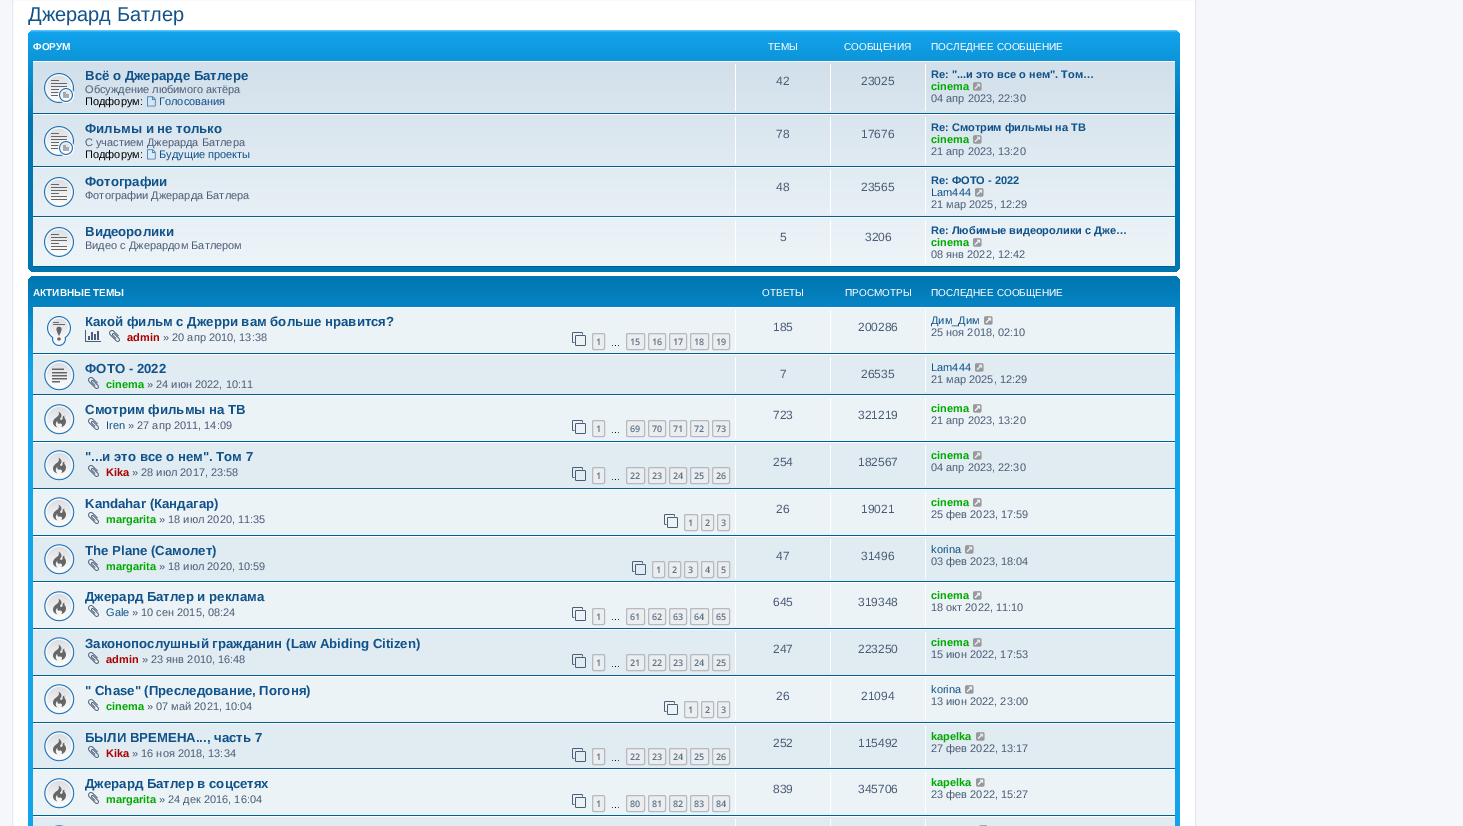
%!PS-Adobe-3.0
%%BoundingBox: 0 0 1463 826
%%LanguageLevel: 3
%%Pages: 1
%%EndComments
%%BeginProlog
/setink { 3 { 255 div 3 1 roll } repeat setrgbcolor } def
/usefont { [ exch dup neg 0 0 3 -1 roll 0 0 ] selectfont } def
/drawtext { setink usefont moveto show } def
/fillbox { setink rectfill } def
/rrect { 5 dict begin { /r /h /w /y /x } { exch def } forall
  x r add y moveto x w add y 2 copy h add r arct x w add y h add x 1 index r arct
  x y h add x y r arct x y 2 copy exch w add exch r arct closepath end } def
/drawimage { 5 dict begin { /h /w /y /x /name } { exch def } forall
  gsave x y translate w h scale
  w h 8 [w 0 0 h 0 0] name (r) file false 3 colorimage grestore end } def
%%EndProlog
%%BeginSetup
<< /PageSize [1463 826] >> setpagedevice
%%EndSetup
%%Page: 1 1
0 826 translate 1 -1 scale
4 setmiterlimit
0 0 1463 826 245 247 250 fillbox
255 255 255 setink
12.5 -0.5 moveto 1195.5 -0.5 lineto 1195.5 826.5 lineto 12.5 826.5 lineto closepath gsave fill grestore
230 233 237 setink
stroke
(Джерард Батлер) 28 21 /LiberationSans-Regular 20 16 82 137 drawtext
gsave 28 30 1152 242 7 rrect clip newpath
<< /ShadingType 2 /ColorSpace /DeviceRGB /Coords [604 30 604 272] /Extend [true true] /Function << /FunctionType 3 /Domain [0 1] /Functions [<< /FunctionType 2 /Domain [0 1] /C0 [0.416 0.808 1] /C1 [0.071 0.639 0.922] /N 1 >> << /FunctionType 2 /Domain [0 1] /C0 [0.071 0.639 0.922] /C1 [0 0.463 0.694] /N 1 >> << /FunctionType 2 /Domain [0 1] /C0 [0 0.463 0.694] /C1 [0 0.463 0.694] /N 1 >>] /Bounds [0.01 0.38] /Encode [0 1 0 1 0 1] >> >> shfill grestore
(ФОРУМ) 33 50 /LiberationSans-Bold 10 255 255 255 drawtext
(ТЕМЫ) 768 50 /LiberationSans-Regular 10 255 255 255 drawtext
(СООБЩЕНИЯ) 844 50 /LiberationSans-Regular 10 255 255 255 drawtext
(ПОСЛЕДНЕЕ СООБЩЕНИЕ) 931 50 /LiberationSans-Regular 10 255 255 255 drawtext
gsave 33 62 moveto 1175 62 lineto 1175 266 lineto 33 266 lineto closepath clip newpath
<< /ShadingType 2 /ColorSpace /DeviceRGB /Coords [604 61 604 267] /Extend [true true] /Function << /FunctionType 2 /Domain [0 1] /C0 [0.824 0.878 0.922] /C1 [0.933 0.961 0.976] /N 1 >> >> shfill grestore
33 61 1142 1 255 255 255 fillbox
33 113 1142 1 0 96 143 fillbox
(assets/img1.rgb) 44 73 30 30 drawimage
(Всё о Джерарде Батлере) 85 80 /LiberationSans-Bold 13.2 16 82 137 drawtext
(Обсуждение любимого актёра) 85 93 /LiberationSans-Regular 11 76 93 119 drawtext
(Подфорум:) 85 105 /LiberationSans-Regular 11 0 0 0 drawtext
(assets/img2.rgb) 147 96 9 11 drawimage
(Голосования) 159 105 /LiberationSans-Regular 11 16 82 137 drawtext
735 64 1 47 255 255 255 fillbox
(42) 776 85 /LiberationSans-Regular 12 76 93 119 drawtext
830 64 1 47 255 255 255 fillbox
(23025) 861 85 /LiberationSans-Regular 12 76 93 119 drawtext
925 64 1 47 255 255 255 fillbox
(Re: "...и это все о нем". Том…) 931 78 /LiberationSans-Bold 11 16 82 137 drawtext
(cinema) 931 90 /LiberationSans-Bold 11 0 170 0 drawtext
(assets/img3.rgb) 973 82 9 9 drawimage
(04 апр 2023, 22:30) 931 102 /LiberationSans-Regular 11 76 93 119 drawtext
33 114 1142 1 255 255 255 fillbox
33 166 1142 1 0 96 143 fillbox
(assets/img4.rgb) 44 126 30 30 drawimage
(Фильмы и не только) 85 133 /LiberationSans-Bold 13.2 16 82 137 drawtext
(С участием Джерарда Батлера) 85 146 /LiberationSans-Regular 11 76 93 119 drawtext
(Подфорум:) 85 158 /LiberationSans-Regular 11 0 0 0 drawtext
(assets/img5.rgb) 147 149 9 11 drawimage
(Будущие проекты) 159 158 /LiberationSans-Regular 11 16 82 137 drawtext
735 117 1 47 255 255 255 fillbox
(78) 776 138 /LiberationSans-Regular 12 76 93 119 drawtext
830 117 1 47 255 255 255 fillbox
(17676) 861 138 /LiberationSans-Regular 12 76 93 119 drawtext
925 117 1 47 255 255 255 fillbox
(Re: Смотрим фильмы на ТВ) 931 131 /LiberationSans-Bold 11 16 82 137 drawtext
(cinema) 931 143 /LiberationSans-Bold 11 0 170 0 drawtext
(assets/img6.rgb) 973 135 9 9 drawimage
(21 апр 2023, 13:20) 931 155 /LiberationSans-Regular 11 76 93 119 drawtext
33 167 1142 1 255 255 255 fillbox
33 216 1142 1 0 96 143 fillbox
(assets/img7.rgb) 44 177 30 30 drawimage
(Фотографии) 85 186 /LiberationSans-Bold 13.2 16 82 137 drawtext
(Фотографии Джерарда Батлера) 85 199 /LiberationSans-Regular 11 76 93 119 drawtext
735 170 1 44 255 255 255 fillbox
(48) 776 191 /LiberationSans-Regular 12 76 93 119 drawtext
830 170 1 44 255 255 255 fillbox
(23565) 861 191 /LiberationSans-Regular 12 76 93 119 drawtext
925 170 1 44 255 255 255 fillbox
(Re: ФОТО - 2022) 931 184 /LiberationSans-Bold 11 16 82 137 drawtext
(Lam444) 931 196 /LiberationSans-Regular 11 16 82 137 drawtext
(assets/img8.rgb) 975 188 9 9 drawimage
(21 мар 2025, 12:29) 931 208 /LiberationSans-Regular 11 76 93 119 drawtext
33 217 1142 1 255 255 255 fillbox
33 266 1142 1 0 96 143 fillbox
(assets/img9.rgb) 44 227 30 30 drawimage
(Видеоролики) 85 236 /LiberationSans-Bold 13.2 16 82 137 drawtext
(Видео с Джерардом Батлером) 85 249 /LiberationSans-Regular 11 76 93 119 drawtext
735 220 1 44 255 255 255 fillbox
(5) 780 241 /LiberationSans-Regular 12 76 93 119 drawtext
830 220 1 44 255 255 255 fillbox
(3206) 865 241 /LiberationSans-Regular 12 76 93 119 drawtext
925 220 1 44 255 255 255 fillbox
(Re: Любимые видеоролики с Дже…) 931 234 /LiberationSans-Bold 11 16 82 137 drawtext
(cinema) 931 246 /LiberationSans-Bold 11 0 170 0 drawtext
(assets/img10.rgb) 973 238 9 9 drawimage
(08 янв 2022, 12:42) 931 258 /LiberationSans-Regular 11 76 93 119 drawtext
gsave 28 276 1152 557 7 rrect clip newpath
<< /ShadingType 2 /ColorSpace /DeviceRGB /Coords [604 276 604 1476] /Extend [true true] /Function << /FunctionType 3 /Domain [0 1] /Functions [<< /FunctionType 2 /Domain [0 1] /C0 [0 0.463 0.694] /C1 [0.071 0.639 0.922] /N 1 >> << /FunctionType 2 /Domain [0 1] /C0 [0.071 0.639 0.922] /C1 [0.071 0.639 0.922] /N 1 >>] /Bounds [0.08] /Encode [0 1 0 1] >> >> shfill grestore
(АКТИВНЫЕ ТЕМЫ) 33 296 /LiberationSans-Bold 10 255 255 255 drawtext
(ОТВЕТЫ) 762 296 /LiberationSans-Regular 10 255 255 255 drawtext
(ПРОСМОТРЫ) 845 296 /LiberationSans-Regular 10 255 255 255 drawtext
(ПОСЛЕДНЕЕ СООБЩЕНИЕ) 931 296 /LiberationSans-Regular 10 255 255 255 drawtext
33 308 1142 45 236 243 247 fillbox
33 307 1142 1 255 255 255 fillbox
33 353 1142 1 0 96 143 fillbox
(assets/img11.rgb) 47 316 24 30 drawimage
(Какой фильм с Джерри вам больше нравится?) 85 326 /LiberationSans-Bold 13.2 16 82 137 drawtext
(assets/img12.rgb) 85 330 16 12 drawimage
(assets/img13.rgb) 109 330 11 12 drawimage
(admin) 127 341 /LiberationSans-Bold 11 170 0 0 drawtext
(» 20 апр 2010, 13:38) 163 341 /LiberationSans-Regular 11 76 93 119 drawtext
(assets/img14.rgb) 572 332 14 14 drawimage
236 237 238 setink
592.5 333.5 12 16 1.5 rrect gsave fill grestore
180 186 192 setink
stroke
(1) 596 345 /OpenSans-SemiBold 9 92 117 140 drawtext
(…) 611 346 /LiberationSans-Regular 9 0 0 0 drawtext
236 237 238 setink
626.5 333.5 18 16 1.5 rrect gsave fill grestore
180 186 192 setink
stroke
(15) 630 345 /OpenSans-SemiBold 9 92 117 140 drawtext
236 237 238 setink
648.5 333.5 17 16 1.5 rrect gsave fill grestore
180 186 192 setink
stroke
(16) 652 345 /OpenSans-SemiBold 9 92 117 140 drawtext
236 237 238 setink
669.5 333.5 17 16 1.5 rrect gsave fill grestore
180 186 192 setink
stroke
(17) 673 345 /OpenSans-SemiBold 9 92 117 140 drawtext
236 237 238 setink
690.5 333.5 18 16 1.5 rrect gsave fill grestore
180 186 192 setink
stroke
(18) 694 345 /OpenSans-SemiBold 9 92 117 140 drawtext
236 237 238 setink
712.5 333.5 17 16 1.5 rrect gsave fill grestore
180 186 192 setink
stroke
(19) 716 345 /OpenSans-SemiBold 9 92 117 140 drawtext
735 310 1 41 255 255 255 fillbox
(185) 773 331 /LiberationSans-Regular 12 76 93 119 drawtext
830 310 1 41 255 255 255 fillbox
(200286) 858 331 /LiberationSans-Regular 12 76 93 119 drawtext
925 310 1 41 255 255 255 fillbox
(Дим_Дим) 931 324 /LiberationSans-Regular 11 16 82 137 drawtext
(assets/img15.rgb) 984 316 9 9 drawimage
(25 ноя 2018, 02:10) 931 336 /LiberationSans-Regular 11 76 93 119 drawtext
33 355 1142 39 225 235 242 fillbox
33 354 1142 1 255 255 255 fillbox
33 394 1142 1 0 96 143 fillbox
(assets/img16.rgb) 44 360 31 31 drawimage
(ФОТО - 2022) 85 373 /LiberationSans-Bold 13.2 16 82 137 drawtext
(assets/img17.rgb) 88 377 11 12 drawimage
(cinema) 106 388 /LiberationSans-Bold 11 0 170 0 drawtext
(» 24 июн 2022, 10:11) 147 388 /LiberationSans-Regular 11 76 93 119 drawtext
735 357 1 35 255 255 255 fillbox
(7) 780 378 /LiberationSans-Regular 12 76 93 119 drawtext
830 357 1 35 255 255 255 fillbox
(26535) 861 378 /LiberationSans-Regular 12 76 93 119 drawtext
925 357 1 35 255 255 255 fillbox
(Lam444) 931 371 /LiberationSans-Regular 11 16 82 137 drawtext
(assets/img18.rgb) 975 363 9 9 drawimage
(21 мар 2025, 12:29) 931 383 /LiberationSans-Regular 11 76 93 119 drawtext
33 396 1142 45 236 243 247 fillbox
33 395 1142 1 255 255 255 fillbox
33 441 1142 1 0 96 143 fillbox
(assets/img19.rgb) 44 404 31 31 drawimage
(Смотрим фильмы на ТВ) 85 414 /LiberationSans-Bold 13.2 16 82 137 drawtext
(assets/img13.rgb) 88 418 11 12 drawimage
(Iren) 106 429 /LiberationSans-Regular 11 16 82 137 drawtext
(» 27 апр 2011, 14:09) 128 429 /LiberationSans-Regular 11 76 93 119 drawtext
(assets/img14.rgb) 572 420 14 14 drawimage
236 237 238 setink
592.5 420.5 12 16 1.5 rrect gsave fill grestore
180 186 192 setink
stroke
(1) 596 432 /OpenSans-SemiBold 9 92 117 140 drawtext
(…) 611 433 /LiberationSans-Regular 9 0 0 0 drawtext
236 237 238 setink
626.5 420.5 18 16 1.5 rrect gsave fill grestore
180 186 192 setink
stroke
(69) 630 432 /OpenSans-SemiBold 9 92 117 140 drawtext
236 237 238 setink
648.5 420.5 17 16 1.5 rrect gsave fill grestore
180 186 192 setink
stroke
(70) 652 432 /OpenSans-SemiBold 9 92 117 140 drawtext
236 237 238 setink
669.5 420.5 17 16 1.5 rrect gsave fill grestore
180 186 192 setink
stroke
(71) 673 432 /OpenSans-SemiBold 9 92 117 140 drawtext
236 237 238 setink
690.5 420.5 18 16 1.5 rrect gsave fill grestore
180 186 192 setink
stroke
(72) 694 432 /OpenSans-SemiBold 9 92 117 140 drawtext
236 237 238 setink
712.5 420.5 17 16 1.5 rrect gsave fill grestore
180 186 192 setink
stroke
(73) 716 432 /OpenSans-SemiBold 9 92 117 140 drawtext
735 398 1 41 255 255 255 fillbox
(723) 773 419 /LiberationSans-Regular 12 76 93 119 drawtext
830 398 1 41 255 255 255 fillbox
(321219) 858 419 /LiberationSans-Regular 12 76 93 119 drawtext
925 398 1 41 255 255 255 fillbox
(cinema) 931 412 /LiberationSans-Bold 11 0 170 0 drawtext
(assets/img15.rgb) 973 404 9 9 drawimage
(21 апр 2023, 13:20) 931 424 /LiberationSans-Regular 11 76 93 119 drawtext
33 443 1142 45 225 235 242 fillbox
33 442 1142 1 255 255 255 fillbox
33 488 1142 1 0 96 143 fillbox
(assets/img20.rgb) 44 450 31 31 drawimage
("...и это все о нем". Том 7) 85 461 /LiberationSans-Bold 13.2 16 82 137 drawtext
(assets/img17.rgb) 88 465 11 12 drawimage
(Kika) 106 476 /LiberationSans-Bold 11 170 0 0 drawtext
(» 28 июл 2017, 23:58) 132 476 /LiberationSans-Regular 11 76 93 119 drawtext
(assets/img21.rgb) 572 467 14 14 drawimage
236 237 238 setink
592.5 467.5 12 16 1.5 rrect gsave fill grestore
180 186 192 setink
stroke
(1) 596 479 /OpenSans-SemiBold 9 92 117 140 drawtext
(…) 611 480 /LiberationSans-Regular 9 0 0 0 drawtext
236 237 238 setink
626.5 467.5 18 16 1.5 rrect gsave fill grestore
180 186 192 setink
stroke
(22) 630 479 /OpenSans-SemiBold 9 92 117 140 drawtext
236 237 238 setink
648.5 467.5 17 16 1.5 rrect gsave fill grestore
180 186 192 setink
stroke
(23) 652 479 /OpenSans-SemiBold 9 92 117 140 drawtext
236 237 238 setink
669.5 467.5 17 16 1.5 rrect gsave fill grestore
180 186 192 setink
stroke
(24) 673 479 /OpenSans-SemiBold 9 92 117 140 drawtext
236 237 238 setink
690.5 467.5 18 16 1.5 rrect gsave fill grestore
180 186 192 setink
stroke
(25) 694 479 /OpenSans-SemiBold 9 92 117 140 drawtext
236 237 238 setink
712.5 467.5 17 16 1.5 rrect gsave fill grestore
180 186 192 setink
stroke
(26) 716 479 /OpenSans-SemiBold 9 92 117 140 drawtext
735 445 1 41 255 255 255 fillbox
(254) 773 466 /LiberationSans-Regular 12 76 93 119 drawtext
830 445 1 41 255 255 255 fillbox
(182567) 858 466 /LiberationSans-Regular 12 76 93 119 drawtext
925 445 1 41 255 255 255 fillbox
(cinema) 931 459 /LiberationSans-Bold 11 0 170 0 drawtext
(assets/img18.rgb) 973 451 9 9 drawimage
(04 апр 2023, 22:30) 931 471 /LiberationSans-Regular 11 76 93 119 drawtext
33 490 1142 45 236 243 247 fillbox
33 489 1142 1 255 255 255 fillbox
33 535 1142 1 0 96 143 fillbox
(assets/img19.rgb) 44 497 31 31 drawimage
(Kandahar \(Кандагар\)) 85 508 /LiberationSans-Bold 13.2 16 82 137 drawtext
(assets/img13.rgb) 88 512 11 12 drawimage
(margarita) 106 523 /LiberationSans-Bold 11 0 170 0 drawtext
(» 18 июл 2020, 11:35) 159 523 /LiberationSans-Regular 11 76 93 119 drawtext
(assets/img14.rgb) 664 514 14 14 drawimage
236 237 238 setink
684.5 514.5 13 16 1.5 rrect gsave fill grestore
180 186 192 setink
stroke
(1) 688 526 /OpenSans-SemiBold 9 92 117 140 drawtext
236 237 238 setink
701.5 514.5 12 16 1.5 rrect gsave fill grestore
180 186 192 setink
stroke
(2) 705 526 /OpenSans-SemiBold 9 92 117 140 drawtext
236 237 238 setink
717.5 514.5 12 16 1.5 rrect gsave fill grestore
180 186 192 setink
stroke
(3) 721 526 /OpenSans-SemiBold 9 92 117 140 drawtext
735 492 1 41 255 255 255 fillbox
(26) 776 513 /LiberationSans-Regular 12 76 93 119 drawtext
830 492 1 41 255 255 255 fillbox
(19021) 861 513 /LiberationSans-Regular 12 76 93 119 drawtext
925 492 1 41 255 255 255 fillbox
(cinema) 931 506 /LiberationSans-Bold 11 0 170 0 drawtext
(assets/img15.rgb) 973 498 9 9 drawimage
(25 фев 2023, 17:59) 931 518 /LiberationSans-Regular 11 76 93 119 drawtext
33 537 1142 44 225 235 242 fillbox
33 536 1142 1 255 255 255 fillbox
33 581 1142 1 0 96 143 fillbox
(assets/img20.rgb) 44 544 31 31 drawimage
(The Plane \(Самолет\)) 85 555 /LiberationSans-Bold 13.2 16 82 137 drawtext
(assets/img17.rgb) 88 559 11 12 drawimage
(margarita) 106 570 /LiberationSans-Bold 11 0 170 0 drawtext
(» 18 июл 2020, 10:59) 159 570 /LiberationSans-Regular 11 76 93 119 drawtext
(assets/img21.rgb) 632 561 14 14 drawimage
236 237 238 setink
652.5 561.5 12 16 1.5 rrect gsave fill grestore
180 186 192 setink
stroke
(1) 656 573 /OpenSans-SemiBold 9 92 117 140 drawtext
236 237 238 setink
668.5 561.5 12 16 1.5 rrect gsave fill grestore
180 186 192 setink
stroke
(2) 672 573 /OpenSans-SemiBold 9 92 117 140 drawtext
236 237 238 setink
684.5 561.5 13 16 1.5 rrect gsave fill grestore
180 186 192 setink
stroke
(3) 688 573 /OpenSans-SemiBold 9 92 117 140 drawtext
236 237 238 setink
701.5 561.5 12 16 1.5 rrect gsave fill grestore
180 186 192 setink
stroke
(4) 705 573 /OpenSans-SemiBold 9 92 117 140 drawtext
236 237 238 setink
717.5 561.5 12 16 1.5 rrect gsave fill grestore
180 186 192 setink
stroke
(5) 721 573 /OpenSans-SemiBold 9 92 117 140 drawtext
735 539 1 40 255 255 255 fillbox
(47) 776 560 /LiberationSans-Regular 12 76 93 119 drawtext
830 539 1 40 255 255 255 fillbox
(31496) 861 560 /LiberationSans-Regular 12 76 93 119 drawtext
925 539 1 40 255 255 255 fillbox
(korina) 931 553 /LiberationSans-Regular 11 16 82 137 drawtext
(assets/img18.rgb) 965 545 9 9 drawimage
(03 фев 2023, 18:04) 931 565 /LiberationSans-Regular 11 76 93 119 drawtext
33 583 1142 45 236 243 247 fillbox
33 582 1142 1 255 255 255 fillbox
33 628 1142 1 0 96 143 fillbox
(assets/img19.rgb) 44 591 31 31 drawimage
(Джерард Батлер и реклама) 85 601 /LiberationSans-Bold 13.2 16 82 137 drawtext
(assets/img13.rgb) 88 605 11 12 drawimage
(Gale) 106 616 /LiberationSans-Regular 11 16 82 137 drawtext
(» 10 сен 2015, 08:24) 132 616 /LiberationSans-Regular 11 76 93 119 drawtext
(assets/img14.rgb) 572 607 14 14 drawimage
236 237 238 setink
592.5 608.5 12 16 1.5 rrect gsave fill grestore
180 186 192 setink
stroke
(1) 596 620 /OpenSans-SemiBold 9 92 117 140 drawtext
(…) 611 620 /LiberationSans-Regular 9 0 0 0 drawtext
236 237 238 setink
626.5 608.5 18 16 1.5 rrect gsave fill grestore
180 186 192 setink
stroke
(61) 630 620 /OpenSans-SemiBold 9 92 117 140 drawtext
236 237 238 setink
648.5 608.5 17 16 1.5 rrect gsave fill grestore
180 186 192 setink
stroke
(62) 652 620 /OpenSans-SemiBold 9 92 117 140 drawtext
236 237 238 setink
669.5 608.5 17 16 1.5 rrect gsave fill grestore
180 186 192 setink
stroke
(63) 673 620 /OpenSans-SemiBold 9 92 117 140 drawtext
236 237 238 setink
690.5 608.5 18 16 1.5 rrect gsave fill grestore
180 186 192 setink
stroke
(64) 694 620 /OpenSans-SemiBold 9 92 117 140 drawtext
236 237 238 setink
712.5 608.5 17 16 1.5 rrect gsave fill grestore
180 186 192 setink
stroke
(65) 716 620 /OpenSans-SemiBold 9 92 117 140 drawtext
735 585 1 41 255 255 255 fillbox
(645) 773 606 /LiberationSans-Regular 12 76 93 119 drawtext
830 585 1 41 255 255 255 fillbox
(319348) 858 606 /LiberationSans-Regular 12 76 93 119 drawtext
925 585 1 41 255 255 255 fillbox
(cinema) 931 599 /LiberationSans-Bold 11 0 170 0 drawtext
(assets/img15.rgb) 973 591 9 9 drawimage
(18 окт 2022, 11:10) 931 611 /LiberationSans-Regular 11 76 93 119 drawtext
33 630 1142 45 225 235 242 fillbox
33 629 1142 1 255 255 255 fillbox
33 675 1142 1 0 96 143 fillbox
(assets/img20.rgb) 44 637 31 31 drawimage
(Законопослушный гражданин \(Law Abiding Citizen\)) 85 648 /LiberationSans-Bold 13.2 16 82 137 drawtext
(assets/img17.rgb) 88 652 11 12 drawimage
(admin) 106 663 /LiberationSans-Bold 11 170 0 0 drawtext
(» 23 янв 2010, 16:48) 142 663 /LiberationSans-Regular 11 76 93 119 drawtext
(assets/img21.rgb) 572 654 14 14 drawimage
236 237 238 setink
592.5 654.5 12 16 1.5 rrect gsave fill grestore
180 186 192 setink
stroke
(1) 596 666 /OpenSans-SemiBold 9 92 117 140 drawtext
(…) 611 667 /LiberationSans-Regular 9 0 0 0 drawtext
236 237 238 setink
626.5 654.5 18 16 1.5 rrect gsave fill grestore
180 186 192 setink
stroke
(21) 630 666 /OpenSans-SemiBold 9 92 117 140 drawtext
236 237 238 setink
648.5 654.5 17 16 1.5 rrect gsave fill grestore
180 186 192 setink
stroke
(22) 652 666 /OpenSans-SemiBold 9 92 117 140 drawtext
236 237 238 setink
669.5 654.5 17 16 1.5 rrect gsave fill grestore
180 186 192 setink
stroke
(23) 673 666 /OpenSans-SemiBold 9 92 117 140 drawtext
236 237 238 setink
690.5 654.5 18 16 1.5 rrect gsave fill grestore
180 186 192 setink
stroke
(24) 694 666 /OpenSans-SemiBold 9 92 117 140 drawtext
236 237 238 setink
712.5 654.5 17 16 1.5 rrect gsave fill grestore
180 186 192 setink
stroke
(25) 716 666 /OpenSans-SemiBold 9 92 117 140 drawtext
735 632 1 41 255 255 255 fillbox
(247) 773 653 /LiberationSans-Regular 12 76 93 119 drawtext
830 632 1 41 255 255 255 fillbox
(223250) 858 653 /LiberationSans-Regular 12 76 93 119 drawtext
925 632 1 41 255 255 255 fillbox
(cinema) 931 646 /LiberationSans-Bold 11 0 170 0 drawtext
(assets/img18.rgb) 973 638 9 9 drawimage
(15 июн 2022, 17:53) 931 658 /LiberationSans-Regular 11 76 93 119 drawtext
33 677 1142 45 236 243 247 fillbox
33 676 1142 1 255 255 255 fillbox
33 722 1142 1 0 96 143 fillbox
(assets/img19.rgb) 44 684 31 31 drawimage
(" Chase" \(Преследование, Погоня\)) 85 695 /LiberationSans-Bold 13.2 16 82 137 drawtext
(assets/img13.rgb) 88 699 11 12 drawimage
(cinema) 106 710 /LiberationSans-Bold 11 0 170 0 drawtext
(» 07 май 2021, 10:04) 147 710 /LiberationSans-Regular 11 76 93 119 drawtext
(assets/img14.rgb) 664 701 14 14 drawimage
236 237 238 setink
684.5 701.5 13 16 1.5 rrect gsave fill grestore
180 186 192 setink
stroke
(1) 688 713 /OpenSans-SemiBold 9 92 117 140 drawtext
236 237 238 setink
701.5 701.5 12 16 1.5 rrect gsave fill grestore
180 186 192 setink
stroke
(2) 705 713 /OpenSans-SemiBold 9 92 117 140 drawtext
236 237 238 setink
717.5 701.5 12 16 1.5 rrect gsave fill grestore
180 186 192 setink
stroke
(3) 721 713 /OpenSans-SemiBold 9 92 117 140 drawtext
735 679 1 41 255 255 255 fillbox
(26) 776 700 /LiberationSans-Regular 12 76 93 119 drawtext
830 679 1 41 255 255 255 fillbox
(21094) 861 700 /LiberationSans-Regular 12 76 93 119 drawtext
925 679 1 41 255 255 255 fillbox
(korina) 931 693 /LiberationSans-Regular 11 16 82 137 drawtext
(assets/img15.rgb) 965 685 9 9 drawimage
(13 июн 2022, 23:00) 931 705 /LiberationSans-Regular 11 76 93 119 drawtext
33 724 1142 44 225 235 242 fillbox
33 723 1142 1 255 255 255 fillbox
33 768 1142 1 0 96 143 fillbox
(assets/img20.rgb) 44 731 31 31 drawimage
(БЫЛИ ВРЕМЕНА..., часть 7) 85 742 /LiberationSans-Bold 13.2 16 82 137 drawtext
(assets/img17.rgb) 88 746 11 12 drawimage
(Kika) 106 757 /LiberationSans-Bold 11 170 0 0 drawtext
(» 16 ноя 2018, 13:34) 132 757 /LiberationSans-Regular 11 76 93 119 drawtext
(assets/img21.rgb) 572 748 14 14 drawimage
236 237 238 setink
592.5 748.5 12 16 1.5 rrect gsave fill grestore
180 186 192 setink
stroke
(1) 596 760 /OpenSans-SemiBold 9 92 117 140 drawtext
(…) 611 761 /LiberationSans-Regular 9 0 0 0 drawtext
236 237 238 setink
626.5 748.5 18 16 1.5 rrect gsave fill grestore
180 186 192 setink
stroke
(22) 630 760 /OpenSans-SemiBold 9 92 117 140 drawtext
236 237 238 setink
648.5 748.5 17 16 1.5 rrect gsave fill grestore
180 186 192 setink
stroke
(23) 652 760 /OpenSans-SemiBold 9 92 117 140 drawtext
236 237 238 setink
669.5 748.5 17 16 1.5 rrect gsave fill grestore
180 186 192 setink
stroke
(24) 673 760 /OpenSans-SemiBold 9 92 117 140 drawtext
236 237 238 setink
690.5 748.5 18 16 1.5 rrect gsave fill grestore
180 186 192 setink
stroke
(25) 694 760 /OpenSans-SemiBold 9 92 117 140 drawtext
236 237 238 setink
712.5 748.5 17 16 1.5 rrect gsave fill grestore
180 186 192 setink
stroke
(26) 716 760 /OpenSans-SemiBold 9 92 117 140 drawtext
735 726 1 40 255 255 255 fillbox
(252) 773 747 /LiberationSans-Regular 12 76 93 119 drawtext
830 726 1 40 255 255 255 fillbox
(115492) 858 747 /LiberationSans-Regular 12 76 93 119 drawtext
925 726 1 40 255 255 255 fillbox
(kapelka) 931 740 /LiberationSans-Bold 11 0 170 0 drawtext
(assets/img18.rgb) 976 732 9 9 drawimage
(27 фев 2022, 13:17) 931 752 /LiberationSans-Regular 11 76 93 119 drawtext
33 770 1142 45 236 243 247 fillbox
33 769 1142 1 255 255 255 fillbox
33 815 1142 1 0 96 143 fillbox
(assets/img19.rgb) 44 778 31 31 drawimage
(Джерард Батлер в соцсетях) 85 788 /LiberationSans-Bold 13.2 16 82 137 drawtext
(assets/img13.rgb) 88 792 11 12 drawimage
(margarita) 106 803 /LiberationSans-Bold 11 0 170 0 drawtext
(» 24 дек 2016, 16:04) 159 803 /LiberationSans-Regular 11 76 93 119 drawtext
(assets/img14.rgb) 572 794 14 14 drawimage
236 237 238 setink
592.5 795.5 12 16 1.5 rrect gsave fill grestore
180 186 192 setink
stroke
(1) 596 807 /OpenSans-SemiBold 9 92 117 140 drawtext
(…) 611 808 /LiberationSans-Regular 9 0 0 0 drawtext
236 237 238 setink
626.5 795.5 18 16 1.5 rrect gsave fill grestore
180 186 192 setink
stroke
(80) 630 807 /OpenSans-SemiBold 9 92 117 140 drawtext
236 237 238 setink
648.5 795.5 17 16 1.5 rrect gsave fill grestore
180 186 192 setink
stroke
(81) 652 807 /OpenSans-SemiBold 9 92 117 140 drawtext
236 237 238 setink
669.5 795.5 17 16 1.5 rrect gsave fill grestore
180 186 192 setink
stroke
(82) 673 807 /OpenSans-SemiBold 9 92 117 140 drawtext
236 237 238 setink
690.5 795.5 18 16 1.5 rrect gsave fill grestore
180 186 192 setink
stroke
(83) 694 807 /OpenSans-SemiBold 9 92 117 140 drawtext
236 237 238 setink
712.5 795.5 17 16 1.5 rrect gsave fill grestore
180 186 192 setink
stroke
(84) 716 807 /OpenSans-SemiBold 9 92 117 140 drawtext
735 772 1 41 255 255 255 fillbox
(839) 773 793 /LiberationSans-Regular 12 76 93 119 drawtext
830 772 1 41 255 255 255 fillbox
(345706) 858 793 /LiberationSans-Regular 12 76 93 119 drawtext
925 772 1 41 255 255 255 fillbox
(kapelka) 931 786 /LiberationSans-Bold 11 0 170 0 drawtext
(assets/img15.rgb) 976 778 9 9 drawimage
(23 фев 2022, 15:27) 931 798 /LiberationSans-Regular 11 76 93 119 drawtext
33 817 1142 9 225 235 242 fillbox
33 816 1142 1 255 255 255 fillbox
(assets/img22.rgb) 55 825 9 1 drawimage
735 819 1 7 255 255 255 fillbox
830 819 1 7 255 255 255 fillbox
925 819 1 7 255 255 255 fillbox
(assets/img23.rgb) 979 825 9 1 drawimage
showpage
%%EOF
